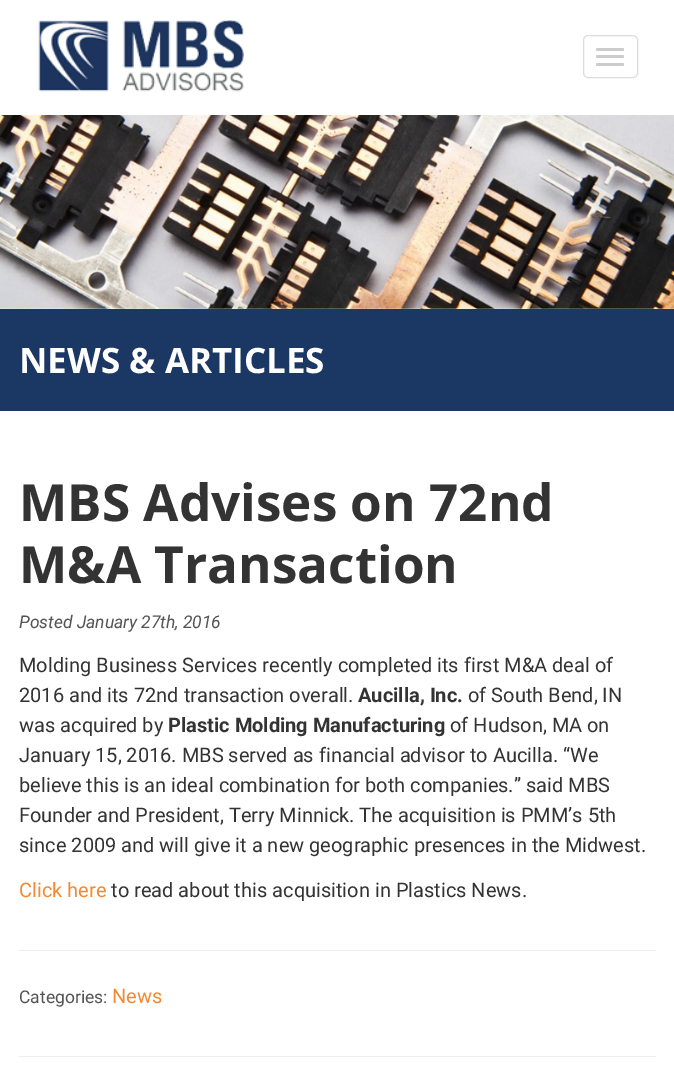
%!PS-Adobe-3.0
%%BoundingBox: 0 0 674 1083
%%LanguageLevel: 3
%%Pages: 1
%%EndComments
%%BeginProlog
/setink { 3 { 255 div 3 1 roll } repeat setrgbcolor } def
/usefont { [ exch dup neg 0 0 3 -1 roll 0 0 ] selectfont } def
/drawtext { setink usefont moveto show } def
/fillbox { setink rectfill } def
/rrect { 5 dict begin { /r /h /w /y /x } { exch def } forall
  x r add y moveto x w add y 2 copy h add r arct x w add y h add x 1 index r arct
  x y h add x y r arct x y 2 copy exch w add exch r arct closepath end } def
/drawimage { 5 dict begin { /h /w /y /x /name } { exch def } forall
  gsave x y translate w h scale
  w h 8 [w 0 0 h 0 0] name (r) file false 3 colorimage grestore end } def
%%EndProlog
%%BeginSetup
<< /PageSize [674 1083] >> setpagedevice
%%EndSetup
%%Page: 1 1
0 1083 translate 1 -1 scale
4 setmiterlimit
0 0 674 1083 255 255 255 fillbox
(assets/img1.rgb) 38 20 206 72 drawimage
221 221 221 setink
583.5 35.5 54 42 4.5 rrect stroke
204 204 204 setink
596 48 28 3 1.5 rrect fill
596 55 28 3 1.5 rrect fill
596 63 28 3 1.5 rrect fill
(assets/img2.rgb) 0 115 674 194 drawimage
0 309 674 102 27 55 100 fillbox
(NEWS & ARTICLES) 19 373 /OpenSans-Bold 35 255 255 255 drawtext
(MBS Advises on 72nd) 19 521 /OpenSans-Bold 51.25 51 51 51 drawtext
(M&A Transaction) 19 583 /OpenSans-Bold 51.25 51 51 51 drawtext
(Posted January 27th, 2016) 19 628 /Roboto-Italic 17.5 85 85 85 drawtext
(Molding Business Services recently completed its first M&A deal of) 19 672 /Roboto-Regular 20 51 51 51 drawtext
(2016 and its 72nd transaction overall.) 19 702 /Roboto-Regular 20 51 51 51 drawtext
(Aucilla, Inc.) 358 702 /Roboto-Bold 20 51 51 51 drawtext
(of South Bend, IN) 468 702 /Roboto-Regular 20 51 51 51 drawtext
(was acquired by) 19 732 /Roboto-Regular 20 51 51 51 drawtext
(Plastic Molding Manufacturing) 168 732 /Roboto-Bold 20 51 51 51 drawtext
(of Hudson, MA on) 450 732 /Roboto-Regular 20 51 51 51 drawtext
(January 15, 2016. MBS served as financial advisor to Aucilla. “We) 19 762 /Roboto-Regular 20 51 51 51 drawtext
(believe this is an ideal combination for both companies.” said MBS) 19 792 /Roboto-Regular 20 51 51 51 drawtext
(Founder and President, Terry Minnick. The acquisition is PMM’s 5th) 19 822 /Roboto-Regular 20 51 51 51 drawtext
(since 2009 and will give it a new geographic presences in the Midwest.) 19 852 /Roboto-Regular 20 51 51 51 drawtext
(Click here) 19 897 /Roboto-Regular 20 245 137 49 drawtext
(to read about this acquisition in Plastics News.) 111 897 /Roboto-Regular 20 51 51 51 drawtext
19 950 637 1 238 238 238 fillbox
(Categories:) 19 1003 /Roboto-Regular 17.5 85 85 85 drawtext
(News) 112 1003 /Roboto-Regular 20 245 137 49 drawtext
19 1056 637 1 238 238 238 fillbox
showpage
%%EOF
